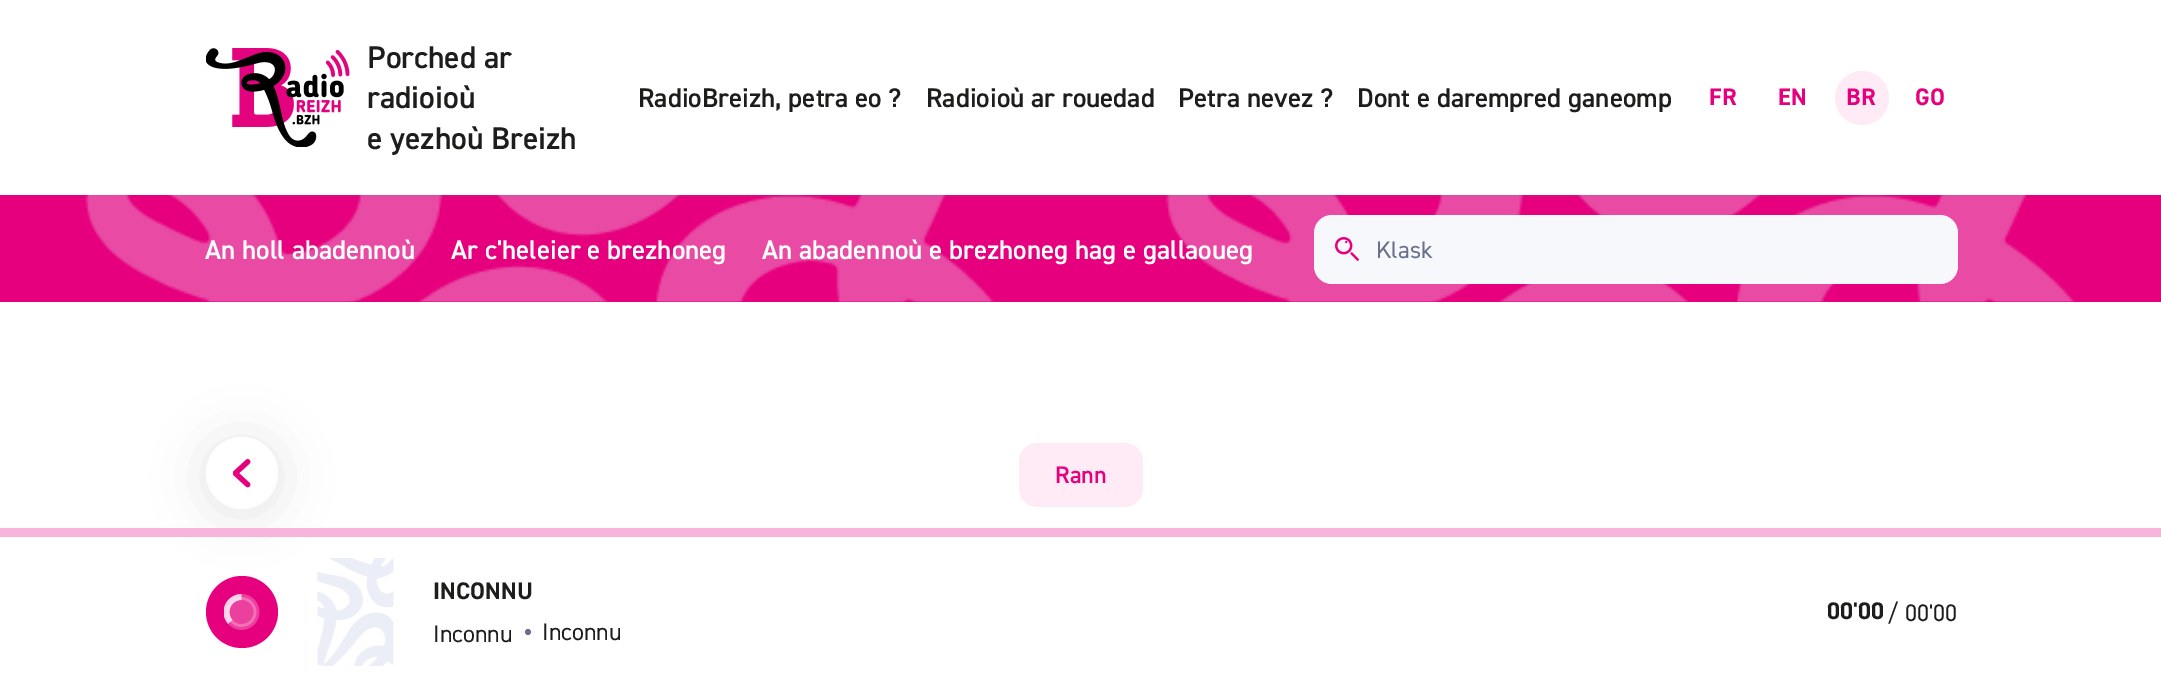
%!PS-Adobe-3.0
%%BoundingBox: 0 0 2161 689
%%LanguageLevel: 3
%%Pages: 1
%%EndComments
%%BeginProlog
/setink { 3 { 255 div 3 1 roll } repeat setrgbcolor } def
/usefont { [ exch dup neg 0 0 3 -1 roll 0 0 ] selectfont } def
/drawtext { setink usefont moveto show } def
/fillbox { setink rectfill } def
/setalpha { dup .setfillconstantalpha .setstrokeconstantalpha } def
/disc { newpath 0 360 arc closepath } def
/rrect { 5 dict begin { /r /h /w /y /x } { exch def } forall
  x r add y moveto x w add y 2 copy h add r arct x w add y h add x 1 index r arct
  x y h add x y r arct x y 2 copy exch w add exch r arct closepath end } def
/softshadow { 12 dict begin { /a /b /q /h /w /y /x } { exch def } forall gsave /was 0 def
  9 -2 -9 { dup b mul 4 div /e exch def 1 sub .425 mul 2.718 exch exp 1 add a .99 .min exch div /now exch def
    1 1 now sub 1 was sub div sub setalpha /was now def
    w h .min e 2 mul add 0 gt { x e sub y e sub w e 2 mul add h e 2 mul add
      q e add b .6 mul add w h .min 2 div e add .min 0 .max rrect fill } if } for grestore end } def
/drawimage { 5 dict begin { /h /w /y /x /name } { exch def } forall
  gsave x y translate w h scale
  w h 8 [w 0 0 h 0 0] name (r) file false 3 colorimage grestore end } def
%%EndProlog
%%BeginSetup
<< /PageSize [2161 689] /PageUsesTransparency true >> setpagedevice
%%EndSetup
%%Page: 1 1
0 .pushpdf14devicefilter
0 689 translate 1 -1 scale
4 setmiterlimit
0 0 2161 689 255 255 255 fillbox
(assets/img1.rgb) 206 48 144 99 drawimage
(Porched ar) 367 68 /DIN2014-SemiBold 31.5 29 29 27 drawtext
(radioioù) 367 108 /DIN2014-SemiBold 31.5 29 29 27 drawtext
(e yezhoù Breizh) 367 149 /DIN2014-SemiBold 31.5 29 29 27 drawtext
(RadioBreizh, petra eo ?) 638 107 /DIN2014-SemiBold 27 29 29 27 drawtext
(Radioioù ar rouedad) 926 107 /DIN2014-SemiBold 27 29 29 27 drawtext
(Petra nevez ?) 1178 107 /DIN2014-SemiBold 27 29 29 27 drawtext
(Dont e darempred ganeomp) 1357 107 /DIN2014-SemiBold 27 29 29 27 drawtext
(FR) 1709 105 /DIN2014-Bold 24 230 0 126 drawtext
(EN) 1778 105 /DIN2014-Bold 24 230 0 126 drawtext
255 235 246 setink
1862 98 27 disc fill
(BR) 1846 105 /DIN2014-Bold 24 230 0 126 drawtext
(GO) 1915 105 /DIN2014-Bold 24 230 0 126 drawtext
0 195 2161 107 230 0 126 fillbox
(assets/img2.rgb) 85 195 1989 107 drawimage
0.1 setalpha
206 195 1752 2 105 112 140 fillbox
1 setalpha
(An holl abadennoù) 205 259 /DIN2014-SemiBold 27 255 255 255 drawtext
(Ar c'heleier e brezhoneg) 451 259 /DIN2014-SemiBold 27 255 255 255 drawtext
(An abadennoù e brezhoneg hag e gallaoueg) 762 259 /DIN2014-SemiBold 27 255 255 255 drawtext
247 248 252 setink
1314 215 644 69 18 rrect fill
(assets/img3.rgb) 1335 237 24 24 drawimage
(Klask) 1376 258 /DIN2014-Regular 24 105 112 140 drawtext
0 0 0 setink
206 441 72 72 36 25.5 0.1 softshadow
255 255 255 setink
242 473 36 disc fill
(assets/img4.rgb) 233 459 18 29 drawimage
255 235 246 setink
1019 443 124 64 18 rrect fill
(Rann) 1055 483 /DIN2014-SemiBold 24 230 0 126 drawtext
232 537 20 1 255 255 255 fillbox
0 528 2161 9 248 179 216 fillbox
230 0 126 setink
242 612 36 disc fill
(assets/img5.rgb) 224 594 36 36 drawimage
(assets/img6.rgb) 317 558 77 108 drawimage
(INCONNU) 433 599 /DIN2014-Bold 24 29 29 27 drawtext
(Inconnu) 433 642 /DIN2014-Regular 24 29 29 27 drawtext
105 112 140 setink
528 632 3 disc fill
(Inconnu) 542 640 /DIN2014-Regular 24 29 29 27 drawtext
(00'00) 1827 619 /DIN2014-Bold 24 29 29 27 drawtext
(/ 00'00) 1887 621 /DIN2014-Regular 24 29 29 27 drawtext
.poppdf14devicefilter showpage
%%EOF
